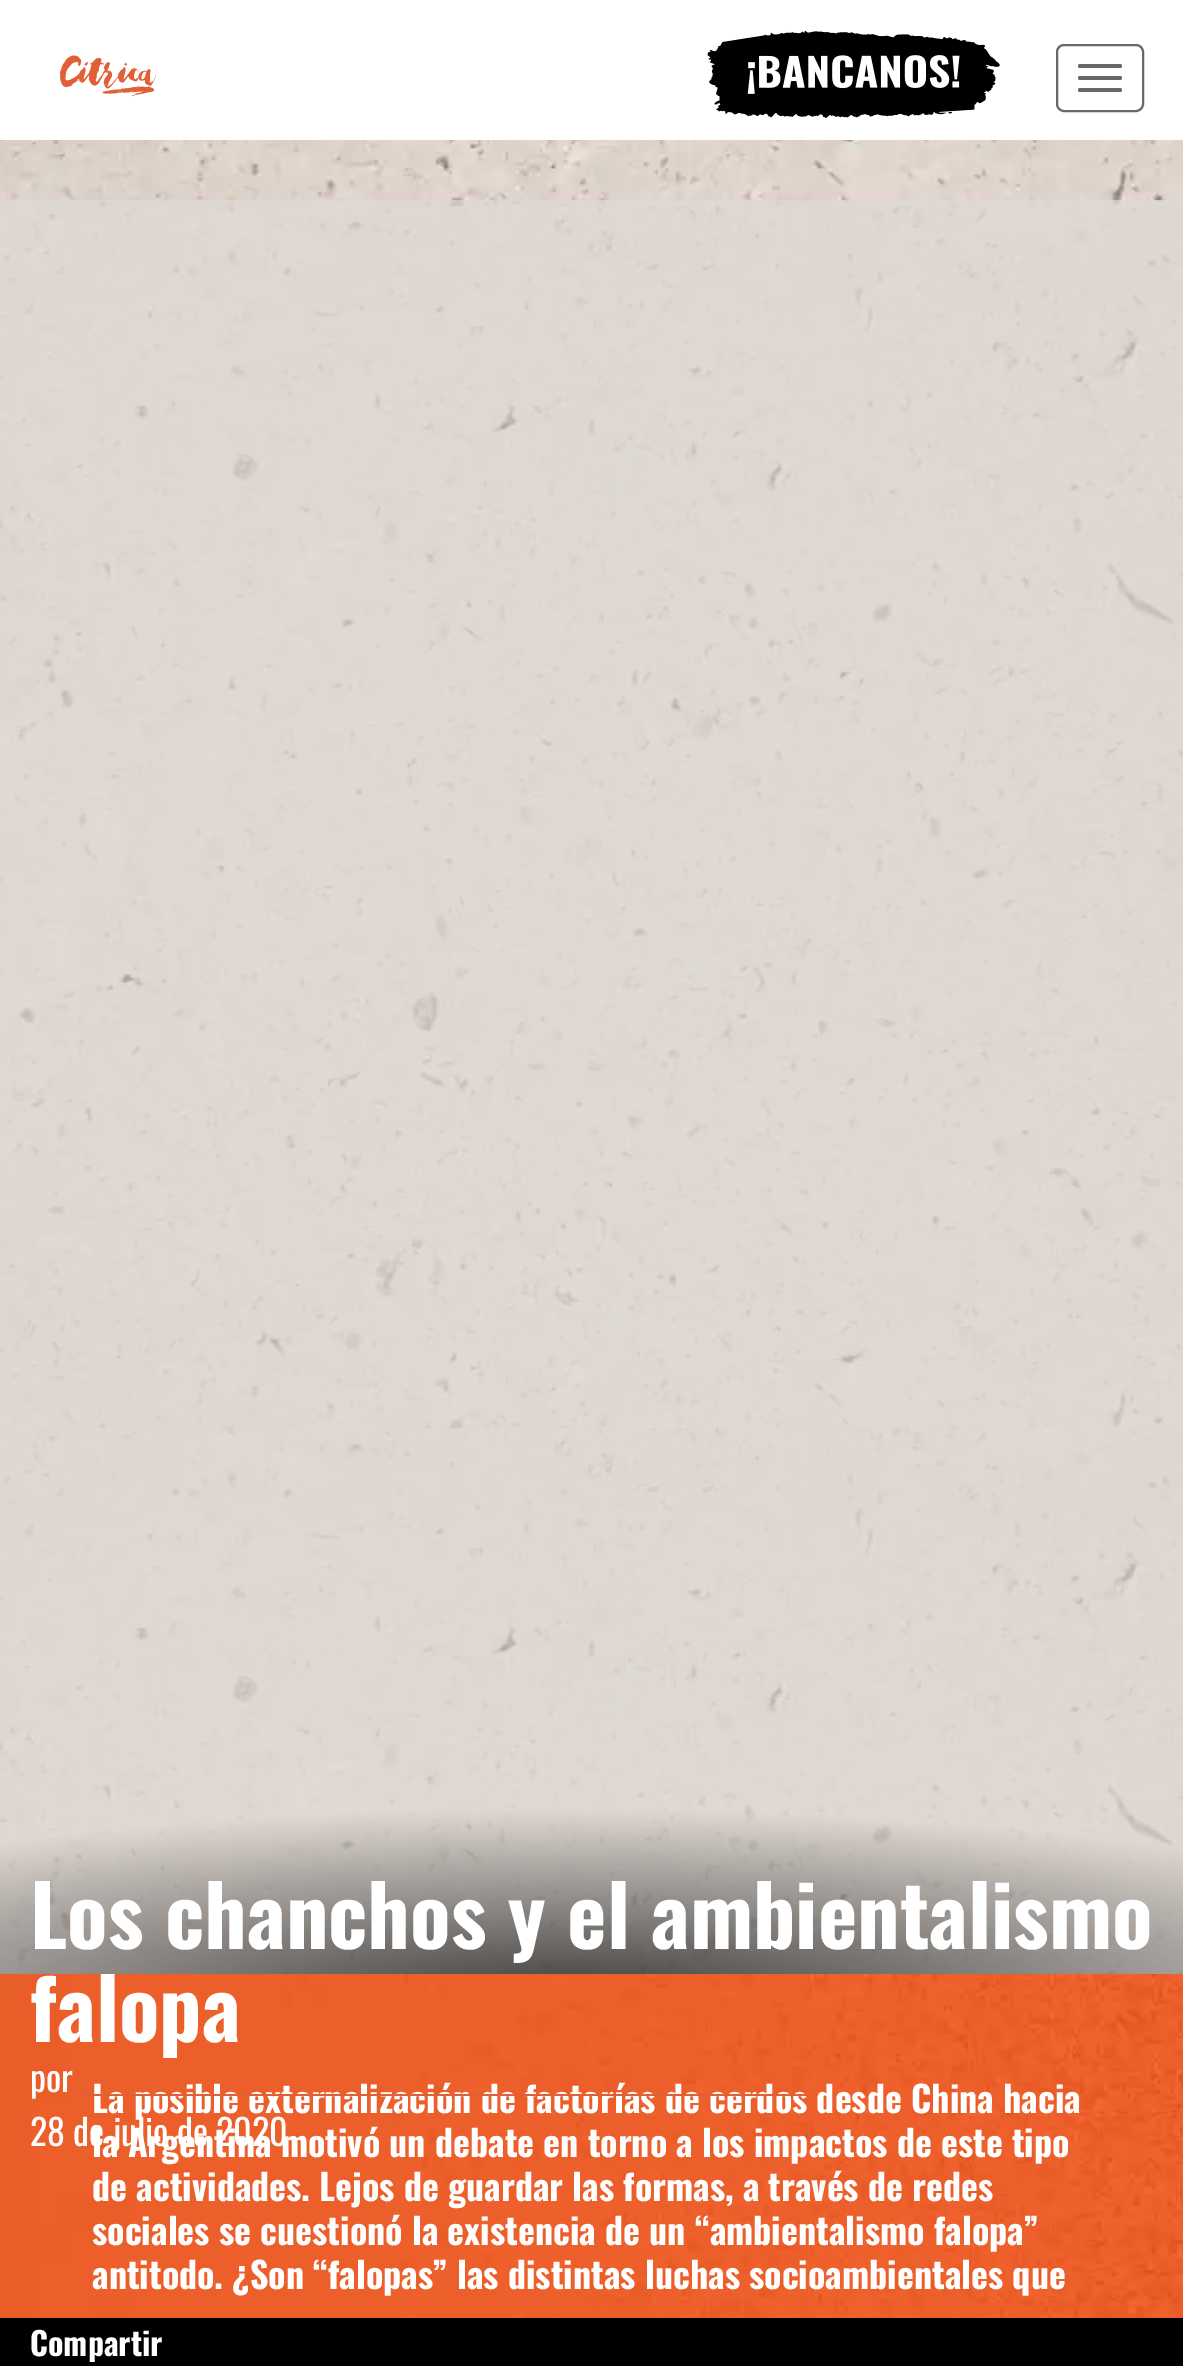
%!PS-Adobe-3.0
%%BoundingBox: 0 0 1183 2366
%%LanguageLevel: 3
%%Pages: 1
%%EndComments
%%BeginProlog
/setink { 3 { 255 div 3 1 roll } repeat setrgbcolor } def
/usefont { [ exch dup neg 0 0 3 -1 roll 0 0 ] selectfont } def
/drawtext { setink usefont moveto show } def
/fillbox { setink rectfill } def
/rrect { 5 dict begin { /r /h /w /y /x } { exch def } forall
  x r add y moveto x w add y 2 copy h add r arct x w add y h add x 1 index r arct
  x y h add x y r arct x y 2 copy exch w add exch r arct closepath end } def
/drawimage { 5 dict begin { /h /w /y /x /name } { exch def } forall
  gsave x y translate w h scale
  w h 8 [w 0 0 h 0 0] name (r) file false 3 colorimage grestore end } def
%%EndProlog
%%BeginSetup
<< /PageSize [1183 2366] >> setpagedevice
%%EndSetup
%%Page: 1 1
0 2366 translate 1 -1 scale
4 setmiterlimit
0 0 1183 2366 255 255 255 fillbox
(assets/img1.rgb) 0 140 1183 1834 drawimage
(assets/img2.rgb) 707 30 293 89 drawimage
(assets/img3.rgb) 60 55 96 42 drawimage
104 104 104 setink
2 setlinewidth
1057 45 86 66 7 rrect stroke
1078 64 44 4 2 rrect fill
1078 76 44 4 2 rrect fill
1078 88 44 4 2 rrect fill
(Los chanchos y el ambientalismo) 30 1949 /Oswald-Bold 84 255 255 255 drawtext
(assets/img4.rgb) 0 1974 1183 344 drawimage
(falopa) 30 2042 /Oswald-Bold 84 255 255 255 drawtext
(por) 30 2092 /Oswald-Regular 36 255 255 255 drawtext
(La posible externalización de factorías de cerdos desde China hacia) 92 2113 /Oswald-Bold 36 255 255 255 drawtext
82 2094 724 2 225 95 54 fillbox
(la Argentina motivó un debate en torno a los impactos de este tipo) 92 2157 /Oswald-Bold 36 255 255 255 drawtext
(28 de julio de 2020) 30 2146 /Oswald-Regular 36 255 255 255 drawtext
(de actividades. Lejos de guardar las formas, a través de redes) 92 2201 /Oswald-Bold 36 255 255 255 drawtext
(sociales se cuestionó la existencia de un “ambientalismo falopa”) 92 2245 /Oswald-Bold 36 255 255 255 drawtext
(antitodo. ¿Son “falopas” las distintas luchas socioambientales que) 92 2289 /Oswald-Bold 36 255 255 255 drawtext
0 2318 1183 48 0 0 0 fillbox
(Compartir) 30 2356 /Oswald-Bold 32 255 255 255 drawtext
showpage
%%EOF
